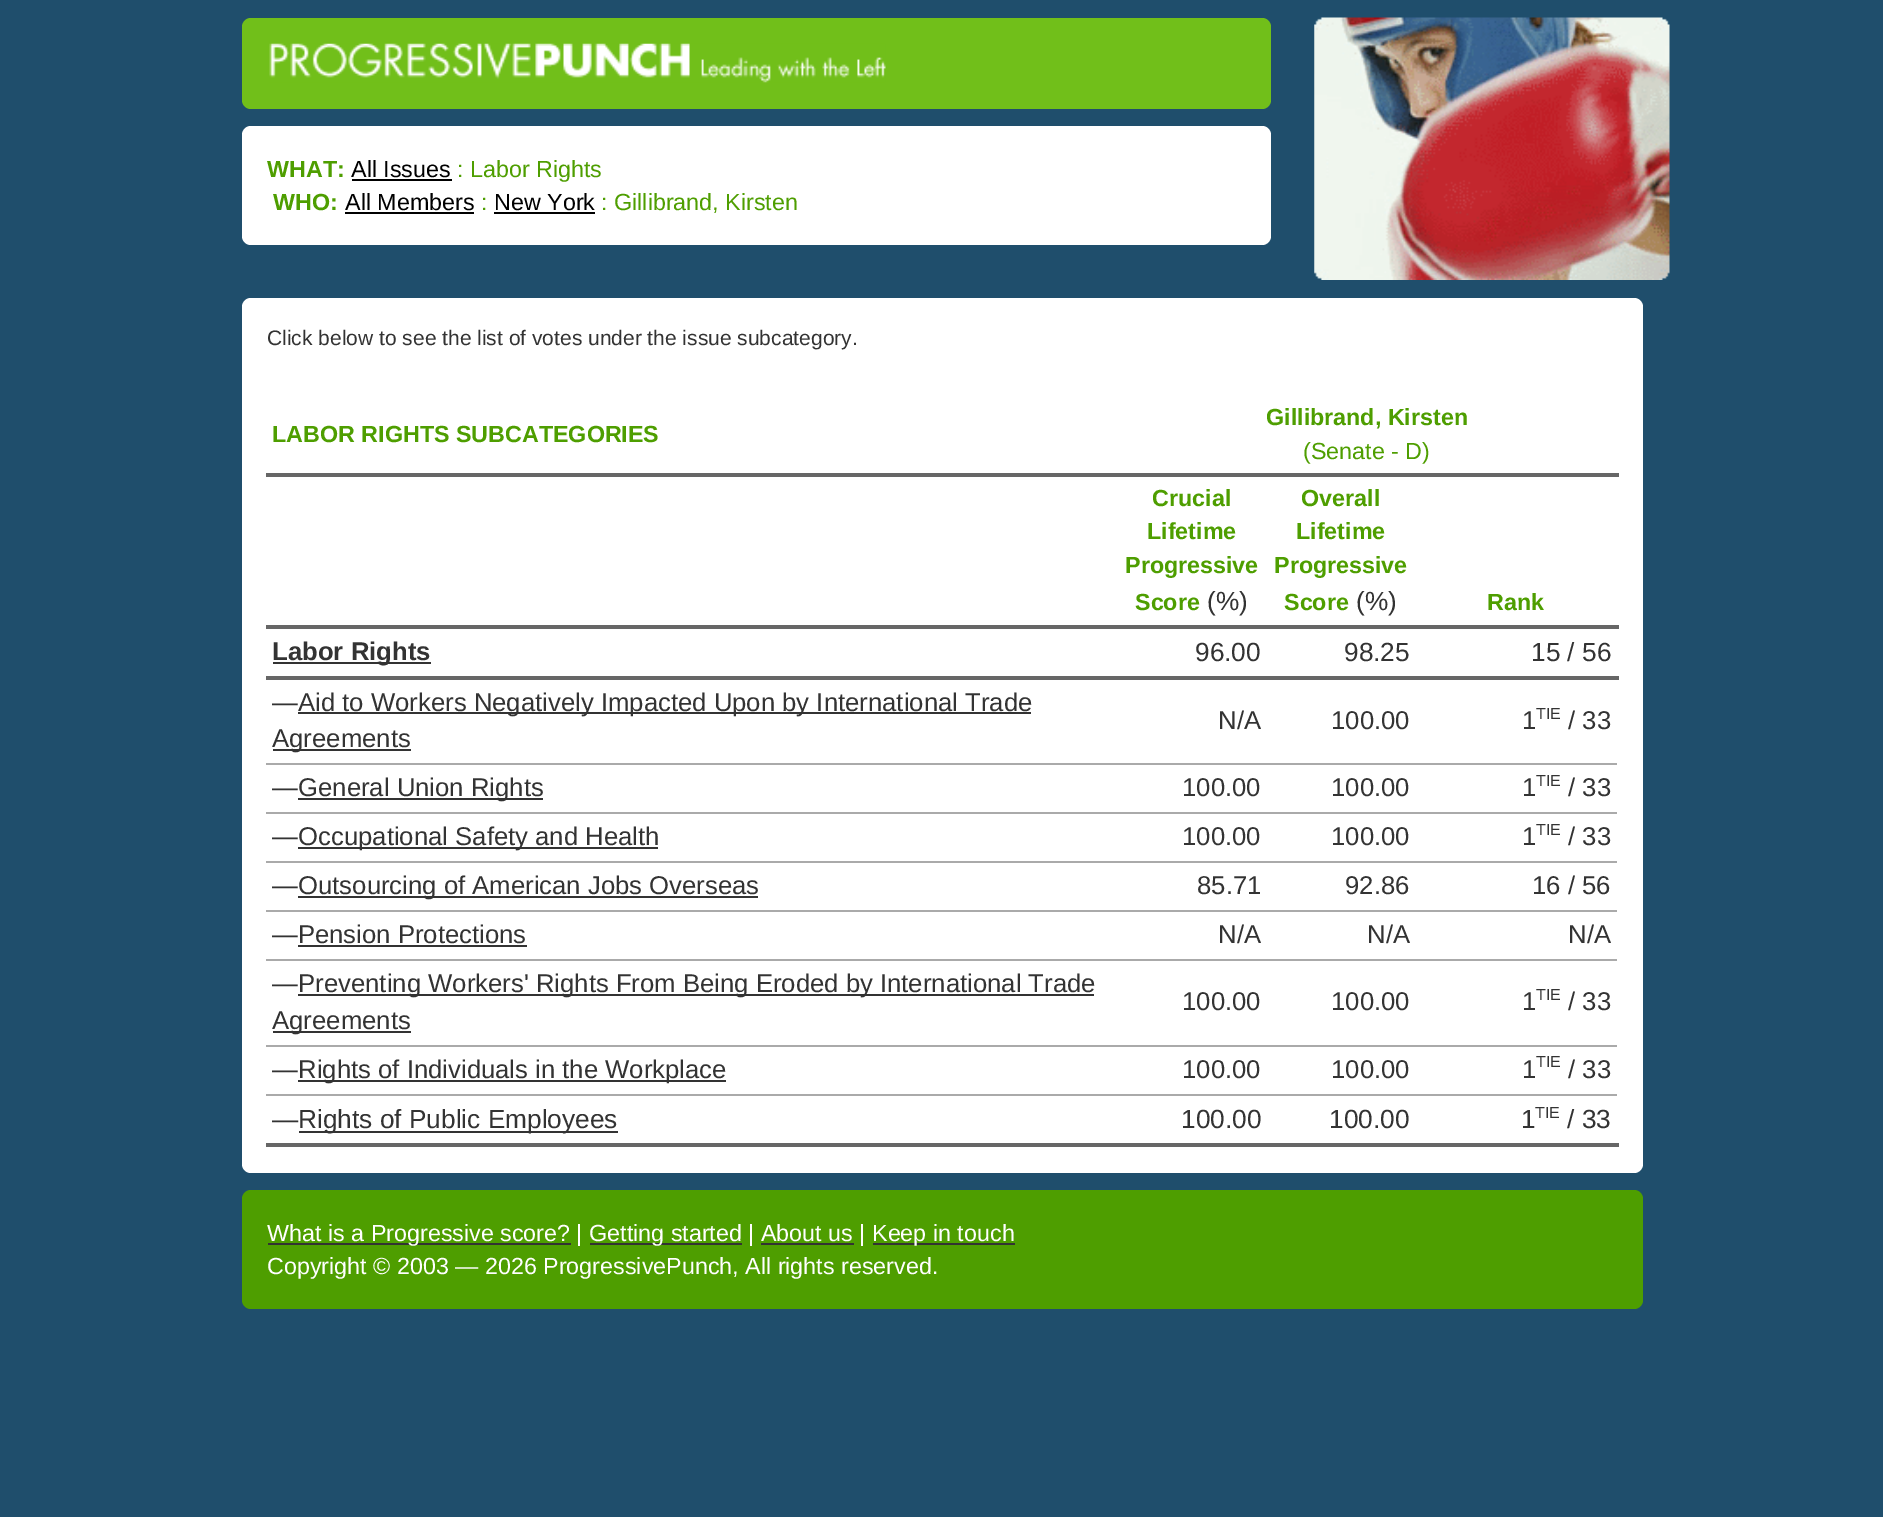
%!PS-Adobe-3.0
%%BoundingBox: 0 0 1883 1517
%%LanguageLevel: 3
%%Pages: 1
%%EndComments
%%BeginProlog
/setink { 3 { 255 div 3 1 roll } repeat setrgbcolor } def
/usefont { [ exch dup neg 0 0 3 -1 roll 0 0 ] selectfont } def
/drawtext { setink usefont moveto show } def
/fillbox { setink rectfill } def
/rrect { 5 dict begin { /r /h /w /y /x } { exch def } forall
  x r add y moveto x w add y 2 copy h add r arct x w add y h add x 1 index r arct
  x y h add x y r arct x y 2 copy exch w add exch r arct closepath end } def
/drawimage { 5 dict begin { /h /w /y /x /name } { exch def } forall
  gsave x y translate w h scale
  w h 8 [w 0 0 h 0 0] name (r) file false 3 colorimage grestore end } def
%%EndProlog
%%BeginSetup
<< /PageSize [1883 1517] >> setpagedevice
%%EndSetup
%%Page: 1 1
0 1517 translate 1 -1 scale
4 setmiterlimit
0 0 1883 1517 31 78 108 fillbox
113 191 26 setink
242 18 1029 91 9 rrect fill
(assets/img1.rgb) 269 43 617 40 drawimage
255 255 255 setink
242 126 1029 119 9 rrect fill
(WHAT:) 267 177 /LiberationSans-Bold 23.3 78 158 0 drawtext
(All Issues) 351 177 /LiberationSans-Regular 23.3 0 0 0 drawtext
352 179 100 2 0 0 0 fillbox
(: Labor Rights) 457 177 /LiberationSans-Regular 23.3 78 158 0 drawtext
(WHO:) 273 210 /LiberationSans-Bold 23.3 78 158 0 drawtext
(All Members) 345 210 /LiberationSans-Regular 23.3 0 0 0 drawtext
345 212 129 2 0 0 0 fillbox
(:) 481 210 /LiberationSans-Regular 23.3 78 158 0 drawtext
(New York) 494 210 /LiberationSans-Regular 23.3 0 0 0 drawtext
494 212 101 2 0 0 0 fillbox
(: Gillibrand, Kirsten) 601 210 /LiberationSans-Regular 23.3 78 158 0 drawtext
(assets/img2.rgb) 1314 17 356 263 drawimage
255 255 255 setink
242 298 1401 875 9 rrect fill
(Click below to see the list of votes under the issue subcategory.) 267 345 /LiberationSans-Regular 21 51 51 51 drawtext
266 473 1353 4 102 102 102 fillbox
(LABOR RIGHTS SUBCATEGORIES) 272 442 /LiberationSans-Bold 23.3 78 158 0 drawtext
(Gillibrand, Kirsten) 1266 425 /LiberationSans-Bold 23.3 78 158 0 drawtext
(\(Senate - D\)) 1303 459 /LiberationSans-Regular 23.3 78 158 0 drawtext
266 625 1353 4 102 102 102 fillbox
(Crucial) 1152 506 /LiberationSans-Bold 23.3 78 158 0 drawtext
(Lifetime) 1147 539 /LiberationSans-Bold 23.3 78 158 0 drawtext
(Progressive) 1125 573 /LiberationSans-Bold 23.3 78 158 0 drawtext
(Score) 1135 610 /LiberationSans-Bold 23.3 78 158 0 drawtext
(\(%\)) 1207 610 /LiberationSans-Regular 26.25 51 51 51 drawtext
(Overall) 1301 506 /LiberationSans-Bold 23.3 78 158 0 drawtext
(Lifetime) 1296 539 /LiberationSans-Bold 23.3 78 158 0 drawtext
(Progressive) 1274 573 /LiberationSans-Bold 23.3 78 158 0 drawtext
(Score) 1284 610 /LiberationSans-Bold 23.3 78 158 0 drawtext
(\(%\)) 1356 610 /LiberationSans-Regular 26.25 51 51 51 drawtext
(Rank) 1487 610 /LiberationSans-Bold 23.3 78 158 0 drawtext
266 676 1353 4 102 102 102 fillbox
273 662 158 2 51 51 51 fillbox
(Labor Rights) 272 660 /LiberationSans-Bold 25.7 51 51 51 drawtext
(96.00) 1195 661 /LiberationSans-Regular 26.25 51 51 51 drawtext
(98.25) 1344 661 /LiberationSans-Regular 26.25 51 51 51 drawtext
(15 / 56) 1531 661 /LiberationSans-Regular 26.25 51 51 51 drawtext
266 763 1351 2 170 170 170 fillbox
(—) 272 711 /LiberationSans-Regular 25.7 51 51 51 drawtext
298 712 733 2 51 51 51 fillbox
(Aid to Workers Negatively Impacted Upon by International Trade) 298 711 /LiberationSans-Regular 25.7 51 51 51 drawtext
273 749 138 2 51 51 51 fillbox
(Agreements) 272 747 /LiberationSans-Regular 25.7 51 51 51 drawtext
(N/A) 1218 729 /LiberationSans-Regular 25.7 51 51 51 drawtext
(100.00) 1331 729 /LiberationSans-Regular 25.7 51 51 51 drawtext
(1) 1522 729 /LiberationSans-Regular 25.7 51 51 51 drawtext
(TIE) 1536 719 /LiberationSans-Regular 16 51 51 51 drawtext
(/ 33) 1568 729 /LiberationSans-Regular 25.7 51 51 51 drawtext
266 812 1351 2 170 170 170 fillbox
(—) 272 796 /LiberationSans-Regular 25.7 51 51 51 drawtext
298 798 245 2 51 51 51 fillbox
(General Union Rights) 298 796 /LiberationSans-Regular 25.7 51 51 51 drawtext
(100.00) 1182 796 /LiberationSans-Regular 25.7 51 51 51 drawtext
(100.00) 1331 796 /LiberationSans-Regular 25.7 51 51 51 drawtext
(1) 1522 796 /LiberationSans-Regular 25.7 51 51 51 drawtext
(TIE) 1536 786 /LiberationSans-Regular 16 51 51 51 drawtext
(/ 33) 1568 796 /LiberationSans-Regular 25.7 51 51 51 drawtext
266 861 1351 2 170 170 170 fillbox
(—) 272 845 /LiberationSans-Regular 25.7 51 51 51 drawtext
298 847 360 2 51 51 51 fillbox
(Occupational Safety and Health) 298 845 /LiberationSans-Regular 25.7 51 51 51 drawtext
(100.00) 1182 845 /LiberationSans-Regular 25.7 51 51 51 drawtext
(100.00) 1331 845 /LiberationSans-Regular 25.7 51 51 51 drawtext
(1) 1522 845 /LiberationSans-Regular 25.7 51 51 51 drawtext
(TIE) 1536 835 /LiberationSans-Regular 16 51 51 51 drawtext
(/ 33) 1568 845 /LiberationSans-Regular 25.7 51 51 51 drawtext
266 910 1351 2 170 170 170 fillbox
(—) 272 894 /LiberationSans-Regular 25.7 51 51 51 drawtext
298 896 460 2 51 51 51 fillbox
(Outsourcing of American Jobs Overseas) 298 894 /LiberationSans-Regular 25.7 51 51 51 drawtext
(85.71) 1197 894 /LiberationSans-Regular 25.7 51 51 51 drawtext
(92.86) 1345 894 /LiberationSans-Regular 25.7 51 51 51 drawtext
(16 / 56) 1532 894 /LiberationSans-Regular 25.7 51 51 51 drawtext
266 959 1351 2 170 170 170 fillbox
(—Pension Protections) 272 943 /LiberationSans-Regular 25.7 51 51 51 drawtext
298 945 229 2 51 51 51 fillbox
(N/A) 1218 943 /LiberationSans-Regular 25.7 51 51 51 drawtext
(N/A) 1367 943 /LiberationSans-Regular 25.7 51 51 51 drawtext
(N/A) 1568 943 /LiberationSans-Regular 25.7 51 51 51 drawtext
266 1045 1351 2 170 170 170 fillbox
(—) 272 992 /LiberationSans-Regular 25.7 51 51 51 drawtext
298 994 796 2 51 51 51 fillbox
(Preventing Workers' Rights From Being Eroded by International Trade) 298 992 /LiberationSans-Regular 25.7 51 51 51 drawtext
273 1031 138 2 51 51 51 fillbox
(Agreements) 272 1029 /LiberationSans-Regular 25.7 51 51 51 drawtext
(100.00) 1182 1010 /LiberationSans-Regular 25.7 51 51 51 drawtext
(100.00) 1331 1010 /LiberationSans-Regular 25.7 51 51 51 drawtext
(1) 1522 1010 /LiberationSans-Regular 25.7 51 51 51 drawtext
(TIE) 1536 1000 /LiberationSans-Regular 16 51 51 51 drawtext
(/ 33) 1568 1010 /LiberationSans-Regular 25.7 51 51 51 drawtext
266 1094 1351 2 170 170 170 fillbox
(—) 272 1078 /LiberationSans-Regular 25.7 51 51 51 drawtext
298 1080 428 2 51 51 51 fillbox
(Rights of Individuals in the Workplace) 298 1078 /LiberationSans-Regular 25.7 51 51 51 drawtext
(100.00) 1182 1078 /LiberationSans-Regular 25.7 51 51 51 drawtext
(100.00) 1331 1078 /LiberationSans-Regular 25.7 51 51 51 drawtext
(1) 1522 1078 /LiberationSans-Regular 25.7 51 51 51 drawtext
(TIE) 1536 1067 /LiberationSans-Regular 16 51 51 51 drawtext
(/ 33) 1568 1078 /LiberationSans-Regular 25.7 51 51 51 drawtext
266 1143 1353 4 102 102 102 fillbox
(—) 272 1128 /LiberationSans-Regular 26.25 51 51 51 drawtext
299 1131 319 2 51 51 51 fillbox
(Rights of Public Employees) 298 1128 /LiberationSans-Regular 26.25 51 51 51 drawtext
(100.00) 1181 1128 /LiberationSans-Regular 26.25 51 51 51 drawtext
(100.00) 1329 1128 /LiberationSans-Regular 26.25 51 51 51 drawtext
(1) 1521 1128 /LiberationSans-Regular 26.25 51 51 51 drawtext
(TIE) 1535 1118 /LiberationSans-Regular 16 51 51 51 drawtext
(/ 33) 1567 1128 /LiberationSans-Regular 26.25 51 51 51 drawtext
78 158 0 setink
242 1190 1401 119 9 rrect fill
268 1243 303 2 51 51 51 fillbox
(What is a Progressive score? |) 267 1241 /LiberationSans-Regular 23.3 255 255 255 drawtext
590 1243 152 2 51 51 51 fillbox
(Getting started | About us |) 589 1241 /LiberationSans-Regular 23.3 255 255 255 drawtext
873 1243 142 2 51 51 51 fillbox
(Keep in touch) 872 1241 /LiberationSans-Regular 23.3 255 255 255 drawtext
761 1243 93 2 51 51 51 fillbox
(Copyright © 2003 — 2026 ProgressivePunch, All rights reserved.) 267 1274 /LiberationSans-Regular 23.3 255 255 255 drawtext
showpage
%%EOF
